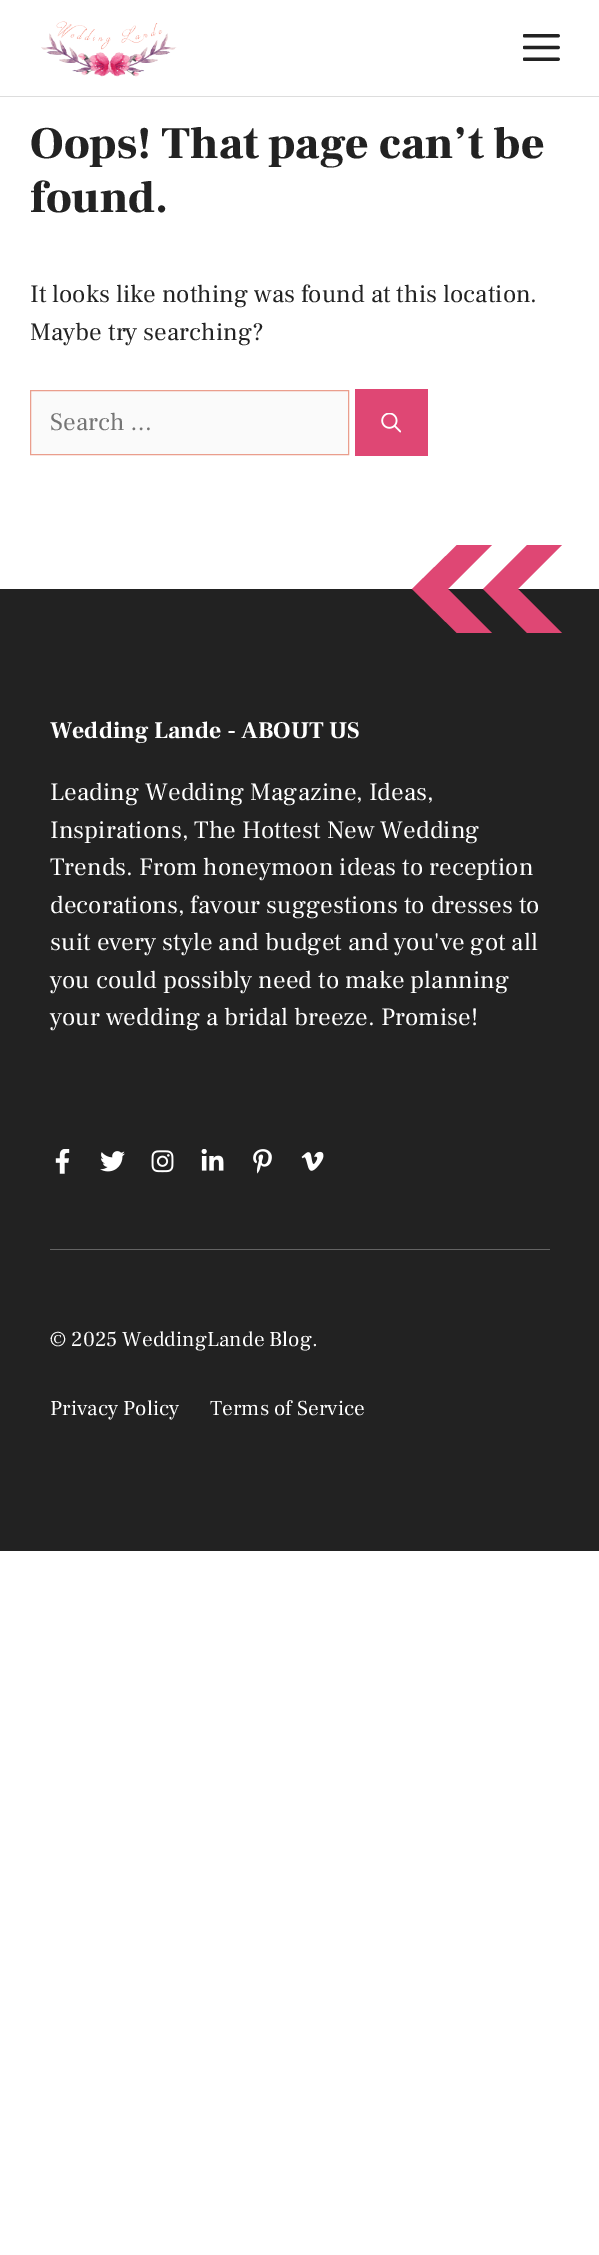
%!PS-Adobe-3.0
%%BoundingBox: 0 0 599 2255
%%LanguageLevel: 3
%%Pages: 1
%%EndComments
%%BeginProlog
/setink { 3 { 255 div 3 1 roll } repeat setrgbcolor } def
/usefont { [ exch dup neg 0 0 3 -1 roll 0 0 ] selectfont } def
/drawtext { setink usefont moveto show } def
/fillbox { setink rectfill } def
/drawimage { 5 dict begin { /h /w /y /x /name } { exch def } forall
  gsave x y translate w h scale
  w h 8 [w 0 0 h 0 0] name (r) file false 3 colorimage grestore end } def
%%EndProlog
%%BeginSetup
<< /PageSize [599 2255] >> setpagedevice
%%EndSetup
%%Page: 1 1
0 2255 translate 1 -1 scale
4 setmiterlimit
0 0 599 2255 255 255 255 fillbox
0 96 599 1 221 221 221 fillbox
(assets/img1.rgb) 41 21 136 56 drawimage
(assets/img2.rgb) 523 34 37 27 drawimage
(Oops! That page can’t be) 30 158 /FrankRuhlLibre-Black 45 34 34 34 drawtext
(found.) 30 212 /FrankRuhlLibre-Black 45 34 34 34 drawtext
(It looks like nothing was found at this location.) 30 302 /FrankRuhlLibre-Regular 25 34 34 34 drawtext
(Maybe try searching?) 30 340 /FrankRuhlLibre-Regular 25 34 34 34 drawtext
250 250 250 setink
30.5 390.5 moveto 348.5 390.5 lineto 348.5 454.5 lineto 30.5 454.5 lineto closepath gsave fill grestore
234 158 141 setink
stroke
(Search …) 50 430 /FrankRuhlLibre-Regular 25 117 117 117 drawtext
355 389 73 67 223 71 116 fillbox
(assets/img3.rgb) 381 413 20 20 drawimage
0 589 599 962 34 34 34 fillbox
223 71 116 setink
448 589 moveto 492 545 lineto 457 545 lineto 412 589 lineto 457 633 lineto 492 633 lineto closepath fill
518 589 moveto 562 545 lineto 527 545 lineto 483 589 lineto 527 633 lineto 562 633 lineto closepath fill
(Wedding Lande - ABOUT US) 50 738 /FrankRuhlLibre-Bold 23.75 255 255 255 drawtext
(Leading Wedding Magazine, Ideas,) 50 800 /FrankRuhlLibre-Regular 25 255 255 255 drawtext
(Inspirations, The Hottest New Wedding) 50 838 /FrankRuhlLibre-Regular 25 255 255 255 drawtext
(Trends. From honeymoon ideas to reception) 50 875 /FrankRuhlLibre-Regular 25 255 255 255 drawtext
(decorations, favour suggestions to dresses to) 50 913 /FrankRuhlLibre-Regular 25 255 255 255 drawtext
(suit every style and budget and you've got all) 50 950 /FrankRuhlLibre-Regular 25 255 255 255 drawtext
(you could possibly need to make planning) 50 988 /FrankRuhlLibre-Regular 25 255 255 255 drawtext
(your wedding a bridal breeze. Promise!) 50 1025 /FrankRuhlLibre-Regular 25 255 255 255 drawtext
(assets/img4.rgb) 55 1149 15 25 drawimage
(assets/img5.rgb) 100 1151 25 21 drawimage
(assets/img6.rgb) 151 1150 23 23 drawimage
(assets/img7.rgb) 201 1149 23 22 drawimage
(assets/img8.rgb) 253 1149 19 25 drawimage
(assets/img9.rgb) 301 1151 23 20 drawimage
50 1249 500 1 100 100 100 fillbox
(© 2025 WeddingLande Blog.) 50 1346 /FrankRuhlLibre-Regular 21.25 255 255 255 drawtext
(Privacy Policy) 50 1415 /FrankRuhlLibre-Regular 21.25 255 255 255 drawtext
(Terms of Service) 210 1415 /FrankRuhlLibre-Regular 21.25 255 255 255 drawtext
showpage
%%EOF
